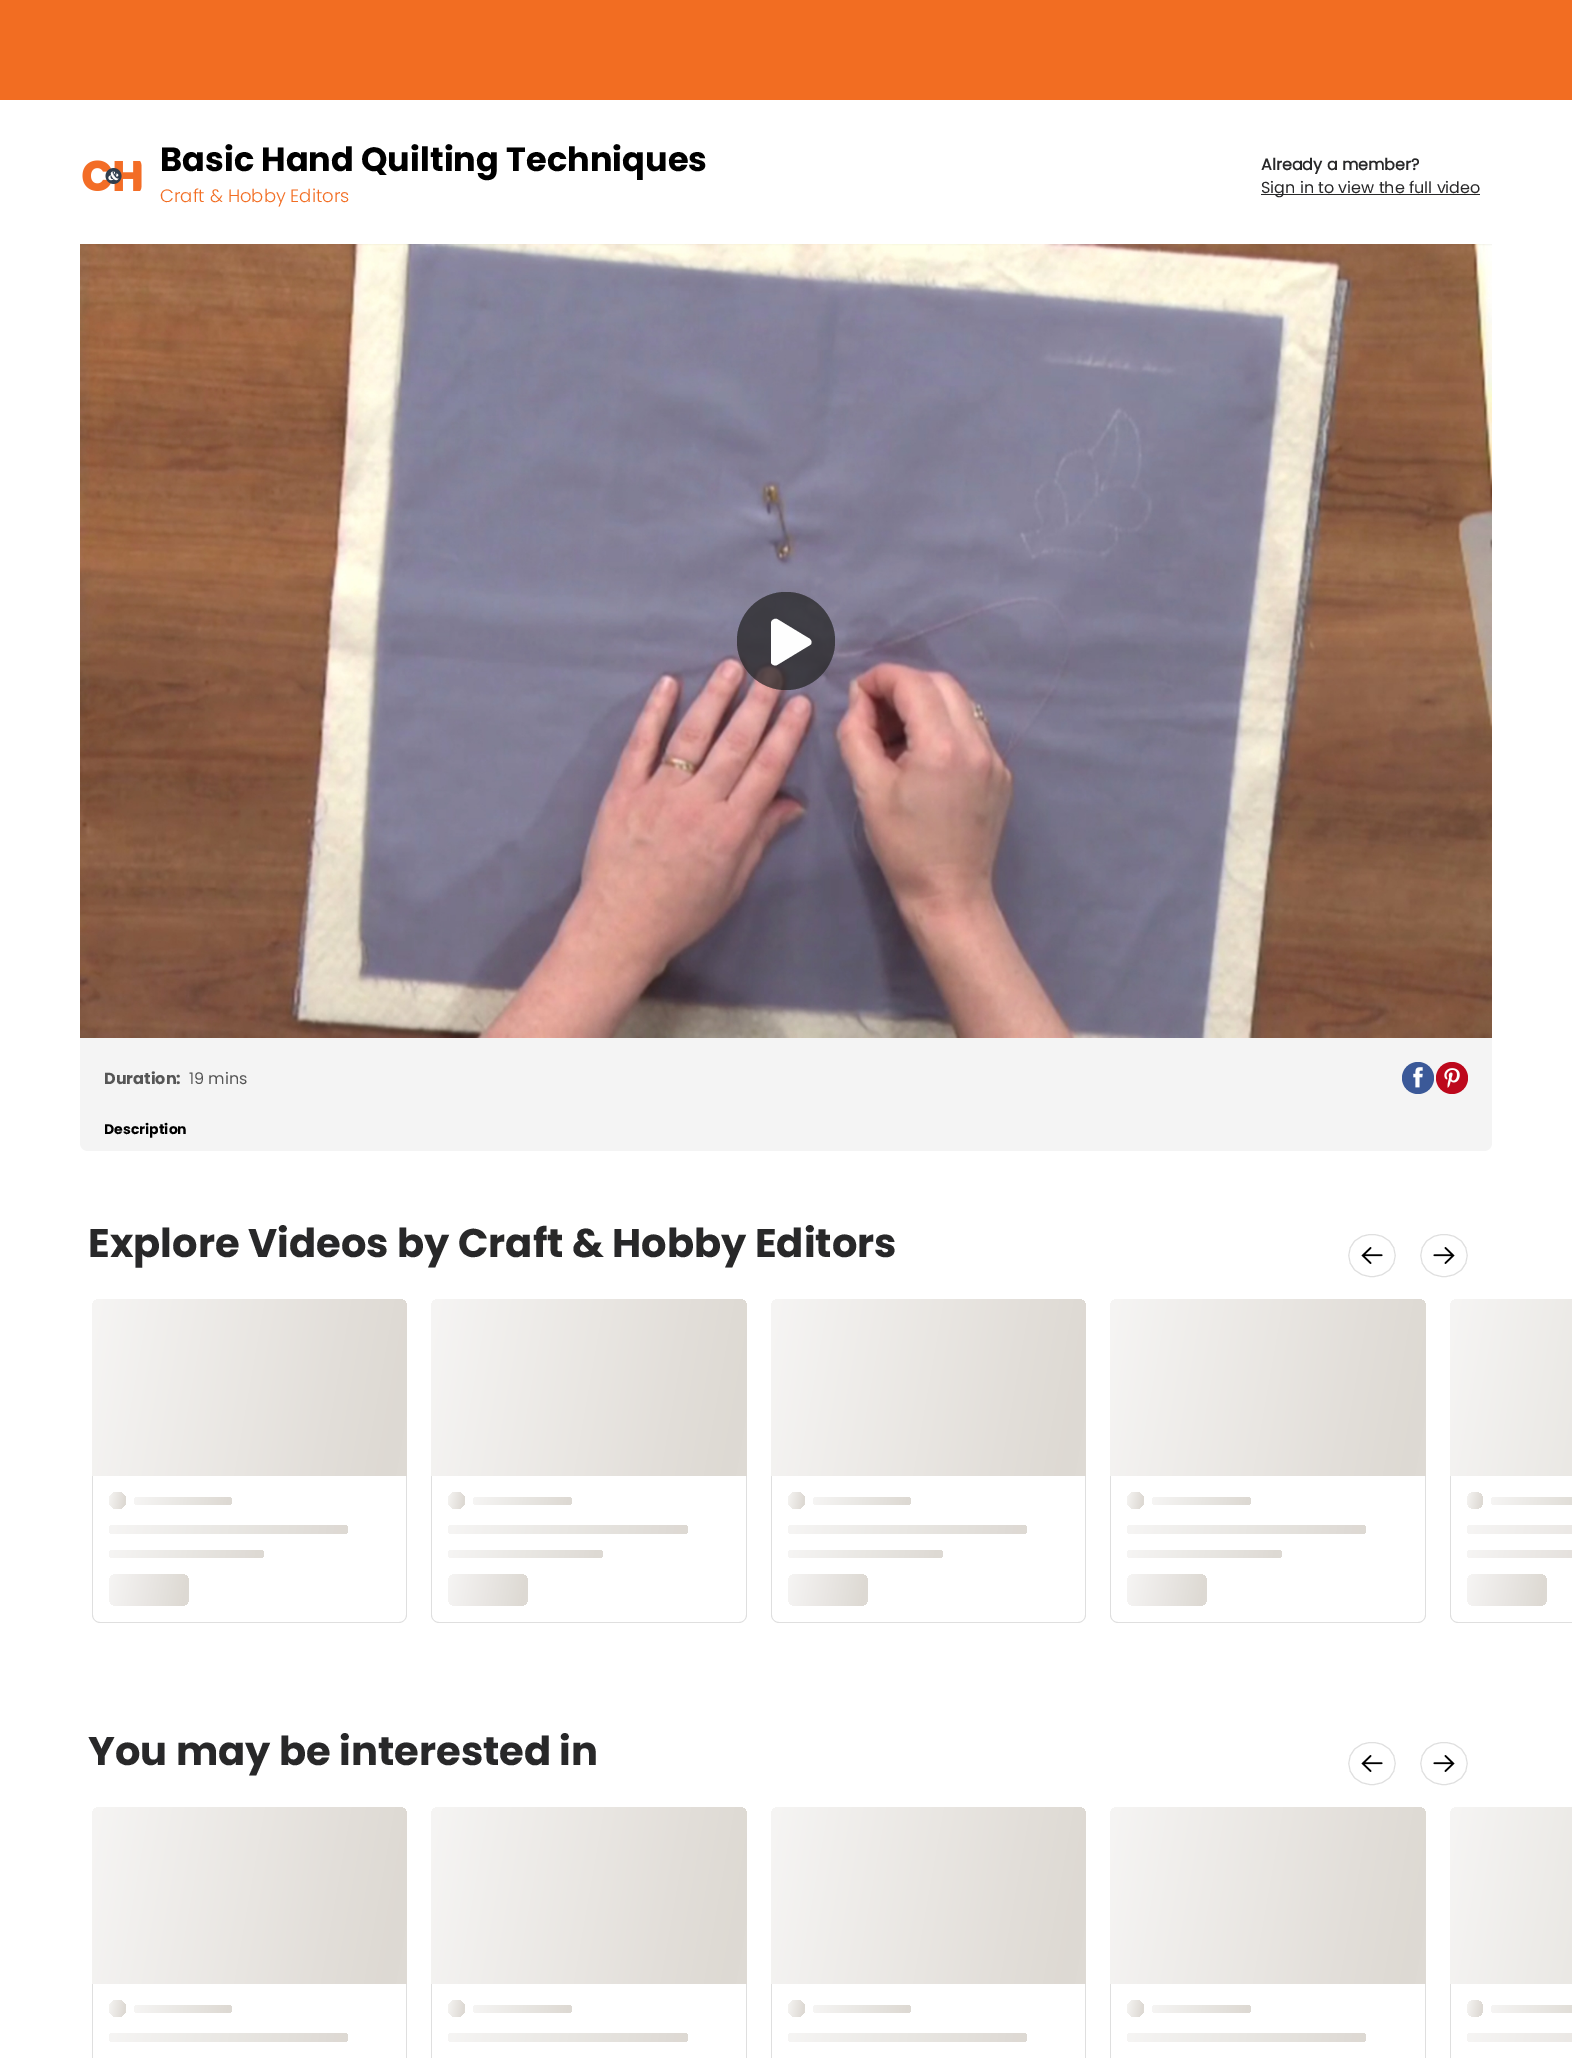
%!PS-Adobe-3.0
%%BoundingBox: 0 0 1572 2058
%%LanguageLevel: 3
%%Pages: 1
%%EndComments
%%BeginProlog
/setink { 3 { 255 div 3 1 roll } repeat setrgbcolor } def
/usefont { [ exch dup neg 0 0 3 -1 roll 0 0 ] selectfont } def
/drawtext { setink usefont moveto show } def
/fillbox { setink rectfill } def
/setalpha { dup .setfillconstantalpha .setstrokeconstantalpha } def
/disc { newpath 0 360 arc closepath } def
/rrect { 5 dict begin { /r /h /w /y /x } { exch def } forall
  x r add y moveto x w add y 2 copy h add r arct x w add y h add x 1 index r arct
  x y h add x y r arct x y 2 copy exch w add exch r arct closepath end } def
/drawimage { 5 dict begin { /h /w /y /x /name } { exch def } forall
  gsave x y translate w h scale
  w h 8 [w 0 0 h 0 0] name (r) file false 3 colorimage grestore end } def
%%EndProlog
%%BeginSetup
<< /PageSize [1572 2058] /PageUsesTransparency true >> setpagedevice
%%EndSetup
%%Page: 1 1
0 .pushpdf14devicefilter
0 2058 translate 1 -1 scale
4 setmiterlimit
0 0 1572 2058 255 255 255 fillbox
0 0 1572 100 242 109 34 fillbox
(assets/img1.rgb) 82 160 60 31 drawimage
(Basic Hand Quilting Techniques) 160 171 /Poppins-Bold 33.6 0 0 0 drawtext
(Craft & Hobby Editors) 160 202 /Poppins-Light 18 242 109 34 drawtext
(Already a member?) 1261 170 /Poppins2-Bold 16 40 40 41 drawtext
1261 194 219 1 40 40 41 fillbox
(Sign in to view the full video) 1261 193 /Poppins-Regular 16 40 40 41 drawtext
(assets/img2.rgb) 80 244 1412 794 drawimage
0.45 setalpha
0 0 0 setink
786 641 49 disc fill
0.5 setalpha
51 51 51 setink
786 641 49 disc fill
1 setalpha
254 254 254 setink
771 642 moveto 771 623 lineto 771 620 775 618 777 619 curveto 810 639 lineto 812 641 812 644 810 645 curveto 777 665 lineto 775 666 771 665 771 662 curveto closepath eofill
80 1038 1412 82 244 244 244 fillbox
(Duration:) 104 1084 /Poppins-Bold 16 86 86 86 drawtext
(19 mins) 189 1084 /Poppins-Regular 16 86 86 86 drawtext
59 89 152 setink
1418 1078 16 disc fill
(assets/img3.rgb) 1413 1067 10 21 drawimage
189 8 28 setink
1452 1078 16 disc fill
(assets/img4.rgb) 1444 1068 16 20 drawimage
244 244 244 setink
80 1120 moveto 1492 1120 lineto 1492 1143 lineto 1492 1147.5 1488.5 1151 1484 1151 curveto 88 1151 lineto 83.5 1151 80 1147.5 80 1143 curveto closepath fill
(Description) 104 1134 /Poppins-Bold 14 0 0 0 drawtext
(Explore Videos by Craft & Hobby Editors) 88 1257 /Poppins-Bold 40 40 40 41 drawtext
223 223 223 setink
1372 1234.5 moveto 1403 1234.5 1403 1276.5 1372 1276.5 curveto 1341 1276.5 1341 1234.5 1372 1234.5 curveto closepath stroke
(assets/img5.rgb) 1361 1247 22 17 drawimage
1444 1234.5 moveto 1475 1234.5 1475 1276.5 1444 1276.5 curveto 1413 1276.5 1413 1234.5 1444 1234.5 curveto closepath stroke
(assets/img6.rgb) 1433 1247 22 17 drawimage
gsave 100 1299 moveto 399 1299 lineto 403.5 1299 407 1302.5 407 1307 curveto 407 1476 lineto 92 1476 lineto 92 1307 lineto 92 1302.5 95.5 1299 100 1299 curveto closepath clip newpath
<< /ShadingType 2 /ColorSpace /DeviceRGB /Coords [91 1304 1038 1471] /Extend [true true] /Function << /FunctionType 3 /Domain [0 1] /Functions [<< /FunctionType 2 /Domain [0 1] /C0 [0.965 0.961 0.957] /C1 [0.867 0.851 0.827] /N 1 >> << /FunctionType 2 /Domain [0 1] /C0 [0.867 0.851 0.827] /C1 [0.965 0.961 0.957] /N 1 >> << /FunctionType 2 /Domain [0 1] /C0 [0.965 0.961 0.957] /C1 [0.867 0.851 0.827] /N 1 >>] /Bounds [0.33 0.67] /Encode [0 1 0 1 0 1] >> >> shfill grestore
92 1476 moveto 407 1476 lineto 407 1615 lineto 407 1619 403 1623 399 1623 curveto 100 1623 lineto 96 1623 92 1619 92 1615 curveto closepath 93 1476 moveto 406 1476 lineto 406 1615 lineto 406 1619 403 1622 399 1622 curveto 100 1622 lineto 96 1622 93 1619 93 1615 curveto closepath eofill
gsave 117.5 1500.5 8.5 disc clip newpath
<< /ShadingType 2 /ColorSpace /DeviceRGB /Coords [108 1496 161 1505] /Extend [true true] /Function << /FunctionType 3 /Domain [0 1] /Functions [<< /FunctionType 2 /Domain [0 1] /C0 [0.965 0.961 0.957] /C1 [0.867 0.851 0.827] /N 1 >> << /FunctionType 2 /Domain [0 1] /C0 [0.867 0.851 0.827] /C1 [0.965 0.961 0.957] /N 1 >> << /FunctionType 2 /Domain [0 1] /C0 [0.965 0.961 0.957] /C1 [0.867 0.851 0.827] /N 1 >>] /Bounds [0.33 0.67] /Encode [0 1 0 1 0 1] >> >> shfill grestore
gsave 134 1497 98 8 4 rrect clip newpath
<< /ShadingType 2 /ColorSpace /DeviceRGB /Coords [138 1476 424 1526] /Extend [true true] /Function << /FunctionType 3 /Domain [0 1] /Functions [<< /FunctionType 2 /Domain [0 1] /C0 [0.965 0.961 0.957] /C1 [0.867 0.851 0.827] /N 1 >> << /FunctionType 2 /Domain [0 1] /C0 [0.867 0.851 0.827] /C1 [0.965 0.961 0.957] /N 1 >> << /FunctionType 2 /Domain [0 1] /C0 [0.965 0.961 0.957] /C1 [0.867 0.851 0.827] /N 1 >>] /Bounds [0.33 0.67] /Encode [0 1 0 1 0 1] >> >> shfill grestore
gsave 109 1525 239 9 4.5 rrect clip newpath
<< /ShadingType 2 /ColorSpace /DeviceRGB /Coords [119 1468 816 1591] /Extend [true true] /Function << /FunctionType 3 /Domain [0 1] /Functions [<< /FunctionType 2 /Domain [0 1] /C0 [0.965 0.961 0.957] /C1 [0.867 0.851 0.827] /N 1 >> << /FunctionType 2 /Domain [0 1] /C0 [0.867 0.851 0.827] /C1 [0.965 0.961 0.957] /N 1 >> << /FunctionType 2 /Domain [0 1] /C0 [0.965 0.961 0.957] /C1 [0.867 0.851 0.827] /N 1 >>] /Bounds [0.33 0.67] /Encode [0 1 0 1 0 1] >> >> shfill grestore
gsave 109 1550 155 8 4 rrect clip newpath
<< /ShadingType 2 /ColorSpace /DeviceRGB /Coords [115 1514 568 1594] /Extend [true true] /Function << /FunctionType 3 /Domain [0 1] /Functions [<< /FunctionType 2 /Domain [0 1] /C0 [0.965 0.961 0.957] /C1 [0.867 0.851 0.827] /N 1 >> << /FunctionType 2 /Domain [0 1] /C0 [0.867 0.851 0.827] /C1 [0.965 0.961 0.957] /N 1 >> << /FunctionType 2 /Domain [0 1] /C0 [0.965 0.961 0.957] /C1 [0.867 0.851 0.827] /N 1 >>] /Bounds [0.33 0.67] /Encode [0 1 0 1 0 1] >> >> shfill grestore
gsave 109 1574 80 32 8 rrect clip newpath
<< /ShadingType 2 /ColorSpace /DeviceRGB /Coords [110 1569 348 1611] /Extend [true true] /Function << /FunctionType 3 /Domain [0 1] /Functions [<< /FunctionType 2 /Domain [0 1] /C0 [0.965 0.961 0.957] /C1 [0.867 0.851 0.827] /N 1 >> << /FunctionType 2 /Domain [0 1] /C0 [0.867 0.851 0.827] /C1 [0.965 0.961 0.957] /N 1 >> << /FunctionType 2 /Domain [0 1] /C0 [0.965 0.961 0.957] /C1 [0.867 0.851 0.827] /N 1 >>] /Bounds [0.33 0.67] /Encode [0 1 0 1 0 1] >> >> shfill grestore
gsave 439 1299 moveto 739 1299 lineto 743.5 1299 747 1302.5 747 1307 curveto 747 1476 lineto 431 1476 lineto 431 1307 lineto 431 1302.5 434.5 1299 439 1299 curveto closepath clip newpath
<< /ShadingType 2 /ColorSpace /DeviceRGB /Coords [430 1304 1380 1471] /Extend [true true] /Function << /FunctionType 3 /Domain [0 1] /Functions [<< /FunctionType 2 /Domain [0 1] /C0 [0.965 0.961 0.957] /C1 [0.867 0.851 0.827] /N 1 >> << /FunctionType 2 /Domain [0 1] /C0 [0.867 0.851 0.827] /C1 [0.965 0.961 0.957] /N 1 >> << /FunctionType 2 /Domain [0 1] /C0 [0.965 0.961 0.957] /C1 [0.867 0.851 0.827] /N 1 >>] /Bounds [0.33 0.67] /Encode [0 1 0 1 0 1] >> >> shfill grestore
431 1476 moveto 747 1476 lineto 747 1615 lineto 747 1619 743 1623 739 1623 curveto 439 1623 lineto 435 1623 431 1619 431 1615 curveto closepath 432 1476 moveto 746 1476 lineto 746 1615 lineto 746 1619 743 1622 739 1622 curveto 439 1622 lineto 435 1622 432 1619 432 1615 curveto closepath eofill
gsave 456.5 1500.5 8.5 disc clip newpath
<< /ShadingType 2 /ColorSpace /DeviceRGB /Coords [447 1496 500 1505] /Extend [true true] /Function << /FunctionType 3 /Domain [0 1] /Functions [<< /FunctionType 2 /Domain [0 1] /C0 [0.965 0.961 0.957] /C1 [0.867 0.851 0.827] /N 1 >> << /FunctionType 2 /Domain [0 1] /C0 [0.867 0.851 0.827] /C1 [0.965 0.961 0.957] /N 1 >> << /FunctionType 2 /Domain [0 1] /C0 [0.965 0.961 0.957] /C1 [0.867 0.851 0.827] /N 1 >>] /Bounds [0.33 0.67] /Encode [0 1 0 1 0 1] >> >> shfill grestore
gsave 473 1497 99 8 4 rrect clip newpath
<< /ShadingType 2 /ColorSpace /DeviceRGB /Coords [477 1475 766 1527] /Extend [true true] /Function << /FunctionType 3 /Domain [0 1] /Functions [<< /FunctionType 2 /Domain [0 1] /C0 [0.965 0.961 0.957] /C1 [0.867 0.851 0.827] /N 1 >> << /FunctionType 2 /Domain [0 1] /C0 [0.867 0.851 0.827] /C1 [0.965 0.961 0.957] /N 1 >> << /FunctionType 2 /Domain [0 1] /C0 [0.965 0.961 0.957] /C1 [0.867 0.851 0.827] /N 1 >>] /Bounds [0.33 0.67] /Encode [0 1 0 1 0 1] >> >> shfill grestore
gsave 448 1525 240 9 4.5 rrect clip newpath
<< /ShadingType 2 /ColorSpace /DeviceRGB /Coords [458 1468 1158 1591] /Extend [true true] /Function << /FunctionType 3 /Domain [0 1] /Functions [<< /FunctionType 2 /Domain [0 1] /C0 [0.965 0.961 0.957] /C1 [0.867 0.851 0.827] /N 1 >> << /FunctionType 2 /Domain [0 1] /C0 [0.867 0.851 0.827] /C1 [0.965 0.961 0.957] /N 1 >> << /FunctionType 2 /Domain [0 1] /C0 [0.965 0.961 0.957] /C1 [0.867 0.851 0.827] /N 1 >>] /Bounds [0.33 0.67] /Encode [0 1 0 1 0 1] >> >> shfill grestore
gsave 448 1550 155 8 4 rrect clip newpath
<< /ShadingType 2 /ColorSpace /DeviceRGB /Coords [454 1514 907 1594] /Extend [true true] /Function << /FunctionType 3 /Domain [0 1] /Functions [<< /FunctionType 2 /Domain [0 1] /C0 [0.965 0.961 0.957] /C1 [0.867 0.851 0.827] /N 1 >> << /FunctionType 2 /Domain [0 1] /C0 [0.867 0.851 0.827] /C1 [0.965 0.961 0.957] /N 1 >> << /FunctionType 2 /Domain [0 1] /C0 [0.965 0.961 0.957] /C1 [0.867 0.851 0.827] /N 1 >>] /Bounds [0.33 0.67] /Encode [0 1 0 1 0 1] >> >> shfill grestore
gsave 448 1574 80 32 8 rrect clip newpath
<< /ShadingType 2 /ColorSpace /DeviceRGB /Coords [449 1569 687 1611] /Extend [true true] /Function << /FunctionType 3 /Domain [0 1] /Functions [<< /FunctionType 2 /Domain [0 1] /C0 [0.965 0.961 0.957] /C1 [0.867 0.851 0.827] /N 1 >> << /FunctionType 2 /Domain [0 1] /C0 [0.867 0.851 0.827] /C1 [0.965 0.961 0.957] /N 1 >> << /FunctionType 2 /Domain [0 1] /C0 [0.965 0.961 0.957] /C1 [0.867 0.851 0.827] /N 1 >>] /Bounds [0.33 0.67] /Encode [0 1 0 1 0 1] >> >> shfill grestore
gsave 779 1299 moveto 1078 1299 lineto 1082.5 1299 1086 1302.5 1086 1307 curveto 1086 1476 lineto 771 1476 lineto 771 1307 lineto 771 1302.5 774.5 1299 779 1299 curveto closepath clip newpath
<< /ShadingType 2 /ColorSpace /DeviceRGB /Coords [770 1304 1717 1471] /Extend [true true] /Function << /FunctionType 3 /Domain [0 1] /Functions [<< /FunctionType 2 /Domain [0 1] /C0 [0.965 0.961 0.957] /C1 [0.867 0.851 0.827] /N 1 >> << /FunctionType 2 /Domain [0 1] /C0 [0.867 0.851 0.827] /C1 [0.965 0.961 0.957] /N 1 >> << /FunctionType 2 /Domain [0 1] /C0 [0.965 0.961 0.957] /C1 [0.867 0.851 0.827] /N 1 >>] /Bounds [0.33 0.67] /Encode [0 1 0 1 0 1] >> >> shfill grestore
771 1476 moveto 1086 1476 lineto 1086 1615 lineto 1086 1619 1082 1623 1078 1623 curveto 779 1623 lineto 775 1623 771 1619 771 1615 curveto closepath 772 1476 moveto 1085 1476 lineto 1085 1615 lineto 1085 1619 1082 1622 1078 1622 curveto 779 1622 lineto 775 1622 772 1619 772 1615 curveto closepath eofill
gsave 796.5 1500.5 8.5 disc clip newpath
<< /ShadingType 2 /ColorSpace /DeviceRGB /Coords [787 1496 840 1505] /Extend [true true] /Function << /FunctionType 3 /Domain [0 1] /Functions [<< /FunctionType 2 /Domain [0 1] /C0 [0.965 0.961 0.957] /C1 [0.867 0.851 0.827] /N 1 >> << /FunctionType 2 /Domain [0 1] /C0 [0.867 0.851 0.827] /C1 [0.965 0.961 0.957] /N 1 >> << /FunctionType 2 /Domain [0 1] /C0 [0.965 0.961 0.957] /C1 [0.867 0.851 0.827] /N 1 >>] /Bounds [0.33 0.67] /Encode [0 1 0 1 0 1] >> >> shfill grestore
gsave 813 1497 98 8 4 rrect clip newpath
<< /ShadingType 2 /ColorSpace /DeviceRGB /Coords [817 1476 1103 1526] /Extend [true true] /Function << /FunctionType 3 /Domain [0 1] /Functions [<< /FunctionType 2 /Domain [0 1] /C0 [0.965 0.961 0.957] /C1 [0.867 0.851 0.827] /N 1 >> << /FunctionType 2 /Domain [0 1] /C0 [0.867 0.851 0.827] /C1 [0.965 0.961 0.957] /N 1 >> << /FunctionType 2 /Domain [0 1] /C0 [0.965 0.961 0.957] /C1 [0.867 0.851 0.827] /N 1 >>] /Bounds [0.33 0.67] /Encode [0 1 0 1 0 1] >> >> shfill grestore
gsave 788 1525 239 9 4.5 rrect clip newpath
<< /ShadingType 2 /ColorSpace /DeviceRGB /Coords [798 1468 1495 1591] /Extend [true true] /Function << /FunctionType 3 /Domain [0 1] /Functions [<< /FunctionType 2 /Domain [0 1] /C0 [0.965 0.961 0.957] /C1 [0.867 0.851 0.827] /N 1 >> << /FunctionType 2 /Domain [0 1] /C0 [0.867 0.851 0.827] /C1 [0.965 0.961 0.957] /N 1 >> << /FunctionType 2 /Domain [0 1] /C0 [0.965 0.961 0.957] /C1 [0.867 0.851 0.827] /N 1 >>] /Bounds [0.33 0.67] /Encode [0 1 0 1 0 1] >> >> shfill grestore
gsave 788 1550 155 8 4 rrect clip newpath
<< /ShadingType 2 /ColorSpace /DeviceRGB /Coords [794 1514 1247 1594] /Extend [true true] /Function << /FunctionType 3 /Domain [0 1] /Functions [<< /FunctionType 2 /Domain [0 1] /C0 [0.965 0.961 0.957] /C1 [0.867 0.851 0.827] /N 1 >> << /FunctionType 2 /Domain [0 1] /C0 [0.867 0.851 0.827] /C1 [0.965 0.961 0.957] /N 1 >> << /FunctionType 2 /Domain [0 1] /C0 [0.965 0.961 0.957] /C1 [0.867 0.851 0.827] /N 1 >>] /Bounds [0.33 0.67] /Encode [0 1 0 1 0 1] >> >> shfill grestore
gsave 788 1574 80 32 8 rrect clip newpath
<< /ShadingType 2 /ColorSpace /DeviceRGB /Coords [789 1569 1027 1611] /Extend [true true] /Function << /FunctionType 3 /Domain [0 1] /Functions [<< /FunctionType 2 /Domain [0 1] /C0 [0.965 0.961 0.957] /C1 [0.867 0.851 0.827] /N 1 >> << /FunctionType 2 /Domain [0 1] /C0 [0.867 0.851 0.827] /C1 [0.965 0.961 0.957] /N 1 >> << /FunctionType 2 /Domain [0 1] /C0 [0.965 0.961 0.957] /C1 [0.867 0.851 0.827] /N 1 >>] /Bounds [0.33 0.67] /Encode [0 1 0 1 0 1] >> >> shfill grestore
gsave 1118 1299 moveto 1418 1299 lineto 1422.5 1299 1426 1302.5 1426 1307 curveto 1426 1476 lineto 1110 1476 lineto 1110 1307 lineto 1110 1302.5 1113.5 1299 1118 1299 curveto closepath clip newpath
<< /ShadingType 2 /ColorSpace /DeviceRGB /Coords [1109 1304 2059 1471] /Extend [true true] /Function << /FunctionType 3 /Domain [0 1] /Functions [<< /FunctionType 2 /Domain [0 1] /C0 [0.965 0.961 0.957] /C1 [0.867 0.851 0.827] /N 1 >> << /FunctionType 2 /Domain [0 1] /C0 [0.867 0.851 0.827] /C1 [0.965 0.961 0.957] /N 1 >> << /FunctionType 2 /Domain [0 1] /C0 [0.965 0.961 0.957] /C1 [0.867 0.851 0.827] /N 1 >>] /Bounds [0.33 0.67] /Encode [0 1 0 1 0 1] >> >> shfill grestore
1110 1476 moveto 1426 1476 lineto 1426 1615 lineto 1426 1619 1422 1623 1418 1623 curveto 1118 1623 lineto 1114 1623 1110 1619 1110 1615 curveto closepath 1111 1476 moveto 1425 1476 lineto 1425 1615 lineto 1425 1619 1422 1622 1418 1622 curveto 1118 1622 lineto 1114 1622 1111 1619 1111 1615 curveto closepath eofill
gsave 1135.5 1500.5 8.5 disc clip newpath
<< /ShadingType 2 /ColorSpace /DeviceRGB /Coords [1126 1496 1179 1505] /Extend [true true] /Function << /FunctionType 3 /Domain [0 1] /Functions [<< /FunctionType 2 /Domain [0 1] /C0 [0.965 0.961 0.957] /C1 [0.867 0.851 0.827] /N 1 >> << /FunctionType 2 /Domain [0 1] /C0 [0.867 0.851 0.827] /C1 [0.965 0.961 0.957] /N 1 >> << /FunctionType 2 /Domain [0 1] /C0 [0.965 0.961 0.957] /C1 [0.867 0.851 0.827] /N 1 >>] /Bounds [0.33 0.67] /Encode [0 1 0 1 0 1] >> >> shfill grestore
gsave 1152 1497 99 8 4 rrect clip newpath
<< /ShadingType 2 /ColorSpace /DeviceRGB /Coords [1156 1475 1445 1527] /Extend [true true] /Function << /FunctionType 3 /Domain [0 1] /Functions [<< /FunctionType 2 /Domain [0 1] /C0 [0.965 0.961 0.957] /C1 [0.867 0.851 0.827] /N 1 >> << /FunctionType 2 /Domain [0 1] /C0 [0.867 0.851 0.827] /C1 [0.965 0.961 0.957] /N 1 >> << /FunctionType 2 /Domain [0 1] /C0 [0.965 0.961 0.957] /C1 [0.867 0.851 0.827] /N 1 >>] /Bounds [0.33 0.67] /Encode [0 1 0 1 0 1] >> >> shfill grestore
gsave 1127 1525 239 9 4.5 rrect clip newpath
<< /ShadingType 2 /ColorSpace /DeviceRGB /Coords [1137 1468 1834 1591] /Extend [true true] /Function << /FunctionType 3 /Domain [0 1] /Functions [<< /FunctionType 2 /Domain [0 1] /C0 [0.965 0.961 0.957] /C1 [0.867 0.851 0.827] /N 1 >> << /FunctionType 2 /Domain [0 1] /C0 [0.867 0.851 0.827] /C1 [0.965 0.961 0.957] /N 1 >> << /FunctionType 2 /Domain [0 1] /C0 [0.965 0.961 0.957] /C1 [0.867 0.851 0.827] /N 1 >>] /Bounds [0.33 0.67] /Encode [0 1 0 1 0 1] >> >> shfill grestore
gsave 1127 1550 155 8 4 rrect clip newpath
<< /ShadingType 2 /ColorSpace /DeviceRGB /Coords [1133 1514 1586 1594] /Extend [true true] /Function << /FunctionType 3 /Domain [0 1] /Functions [<< /FunctionType 2 /Domain [0 1] /C0 [0.965 0.961 0.957] /C1 [0.867 0.851 0.827] /N 1 >> << /FunctionType 2 /Domain [0 1] /C0 [0.867 0.851 0.827] /C1 [0.965 0.961 0.957] /N 1 >> << /FunctionType 2 /Domain [0 1] /C0 [0.965 0.961 0.957] /C1 [0.867 0.851 0.827] /N 1 >>] /Bounds [0.33 0.67] /Encode [0 1 0 1 0 1] >> >> shfill grestore
gsave 1127 1574 80 32 8 rrect clip newpath
<< /ShadingType 2 /ColorSpace /DeviceRGB /Coords [1128 1569 1366 1611] /Extend [true true] /Function << /FunctionType 3 /Domain [0 1] /Functions [<< /FunctionType 2 /Domain [0 1] /C0 [0.965 0.961 0.957] /C1 [0.867 0.851 0.827] /N 1 >> << /FunctionType 2 /Domain [0 1] /C0 [0.867 0.851 0.827] /C1 [0.965 0.961 0.957] /N 1 >> << /FunctionType 2 /Domain [0 1] /C0 [0.965 0.961 0.957] /C1 [0.867 0.851 0.827] /N 1 >>] /Bounds [0.33 0.67] /Encode [0 1 0 1 0 1] >> >> shfill grestore
gsave 1458 1299 moveto 1572 1299 lineto 1572 1476 lineto 1450 1476 lineto 1450 1307 lineto 1450 1302.5 1453.5 1299 1458 1299 curveto closepath clip newpath
<< /ShadingType 2 /ColorSpace /DeviceRGB /Coords [1449 1304 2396 1471] /Extend [true true] /Function << /FunctionType 3 /Domain [0 1] /Functions [<< /FunctionType 2 /Domain [0 1] /C0 [0.965 0.961 0.957] /C1 [0.867 0.851 0.827] /N 1 >> << /FunctionType 2 /Domain [0 1] /C0 [0.867 0.851 0.827] /C1 [0.965 0.961 0.957] /N 1 >> << /FunctionType 2 /Domain [0 1] /C0 [0.965 0.961 0.957] /C1 [0.867 0.851 0.827] /N 1 >>] /Bounds [0.33 0.67] /Encode [0 1 0 1 0 1] >> >> shfill grestore
1450 1476 moveto 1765 1476 lineto 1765 1615 lineto 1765 1619 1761 1623 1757 1623 curveto 1458 1623 lineto 1454 1623 1450 1619 1450 1615 curveto closepath 1451 1476 moveto 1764 1476 lineto 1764 1615 lineto 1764 1619 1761 1622 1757 1622 curveto 1458 1622 lineto 1454 1622 1451 1619 1451 1615 curveto closepath eofill
gsave 1467 1492 16 17 8 rrect clip newpath
<< /ShadingType 2 /ColorSpace /DeviceRGB /Coords [1466 1496 1516 1505] /Extend [true true] /Function << /FunctionType 3 /Domain [0 1] /Functions [<< /FunctionType 2 /Domain [0 1] /C0 [0.965 0.961 0.957] /C1 [0.867 0.851 0.827] /N 1 >> << /FunctionType 2 /Domain [0 1] /C0 [0.867 0.851 0.827] /C1 [0.965 0.961 0.957] /N 1 >> << /FunctionType 2 /Domain [0 1] /C0 [0.965 0.961 0.957] /C1 [0.867 0.851 0.827] /N 1 >>] /Bounds [0.33 0.67] /Encode [0 1 0 1 0 1] >> >> shfill grestore
gsave 1495 1497 moveto 1572 1497 lineto 1572 1505 lineto 1495 1505 lineto 1493 1505 1491 1503 1491 1501 curveto 1491 1499 1493 1497 1495 1497 curveto closepath clip newpath
<< /ShadingType 2 /ColorSpace /DeviceRGB /Coords [1495 1475 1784 1527] /Extend [true true] /Function << /FunctionType 3 /Domain [0 1] /Functions [<< /FunctionType 2 /Domain [0 1] /C0 [0.965 0.961 0.957] /C1 [0.867 0.851 0.827] /N 1 >> << /FunctionType 2 /Domain [0 1] /C0 [0.867 0.851 0.827] /C1 [0.965 0.961 0.957] /N 1 >> << /FunctionType 2 /Domain [0 1] /C0 [0.965 0.961 0.957] /C1 [0.867 0.851 0.827] /N 1 >>] /Bounds [0.33 0.67] /Encode [0 1 0 1 0 1] >> >> shfill grestore
gsave 1471.5 1525 moveto 1572 1525 lineto 1572 1534 lineto 1471.5 1534 lineto 1469 1534 1467 1532 1467 1529.5 curveto 1467 1527 1469 1525 1471.5 1525 curveto closepath clip newpath
<< /ShadingType 2 /ColorSpace /DeviceRGB /Coords [1477 1468 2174 1591] /Extend [true true] /Function << /FunctionType 3 /Domain [0 1] /Functions [<< /FunctionType 2 /Domain [0 1] /C0 [0.965 0.961 0.957] /C1 [0.867 0.851 0.827] /N 1 >> << /FunctionType 2 /Domain [0 1] /C0 [0.867 0.851 0.827] /C1 [0.965 0.961 0.957] /N 1 >> << /FunctionType 2 /Domain [0 1] /C0 [0.965 0.961 0.957] /C1 [0.867 0.851 0.827] /N 1 >>] /Bounds [0.33 0.67] /Encode [0 1 0 1 0 1] >> >> shfill grestore
gsave 1471 1550 moveto 1572 1550 lineto 1572 1558 lineto 1471 1558 lineto 1469 1558 1467 1556 1467 1554 curveto 1467 1552 1469 1550 1471 1550 curveto closepath clip newpath
<< /ShadingType 2 /ColorSpace /DeviceRGB /Coords [1473 1514 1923 1594] /Extend [true true] /Function << /FunctionType 3 /Domain [0 1] /Functions [<< /FunctionType 2 /Domain [0 1] /C0 [0.965 0.961 0.957] /C1 [0.867 0.851 0.827] /N 1 >> << /FunctionType 2 /Domain [0 1] /C0 [0.867 0.851 0.827] /C1 [0.965 0.961 0.957] /N 1 >> << /FunctionType 2 /Domain [0 1] /C0 [0.965 0.961 0.957] /C1 [0.867 0.851 0.827] /N 1 >>] /Bounds [0.33 0.67] /Encode [0 1 0 1 0 1] >> >> shfill grestore
gsave 1467 1574 80 32 8 rrect clip newpath
<< /ShadingType 2 /ColorSpace /DeviceRGB /Coords [1468 1569 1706 1611] /Extend [true true] /Function << /FunctionType 3 /Domain [0 1] /Functions [<< /FunctionType 2 /Domain [0 1] /C0 [0.965 0.961 0.957] /C1 [0.867 0.851 0.827] /N 1 >> << /FunctionType 2 /Domain [0 1] /C0 [0.867 0.851 0.827] /C1 [0.965 0.961 0.957] /N 1 >> << /FunctionType 2 /Domain [0 1] /C0 [0.965 0.961 0.957] /C1 [0.867 0.851 0.827] /N 1 >>] /Bounds [0.33 0.67] /Encode [0 1 0 1 0 1] >> >> shfill grestore
(You may be interested in) 88 1765 /Poppins-Bold 40 40 40 41 drawtext
223 223 223 setink
1372 1742.5 moveto 1403 1742.5 1403 1784.5 1372 1784.5 curveto 1341 1784.5 1341 1742.5 1372 1742.5 curveto closepath stroke
(assets/img5.rgb) 1361 1755 22 17 drawimage
1444 1742.5 moveto 1475 1742.5 1475 1784.5 1444 1784.5 curveto 1413 1784.5 1413 1742.5 1444 1742.5 curveto closepath stroke
(assets/img6.rgb) 1433 1755 22 17 drawimage
gsave 100 1807 moveto 399 1807 lineto 403.5 1807 407 1810.5 407 1815 curveto 407 1984 lineto 92 1984 lineto 92 1815 lineto 92 1810.5 95.5 1807 100 1807 curveto closepath clip newpath
<< /ShadingType 2 /ColorSpace /DeviceRGB /Coords [91 1812 1038 1979] /Extend [true true] /Function << /FunctionType 3 /Domain [0 1] /Functions [<< /FunctionType 2 /Domain [0 1] /C0 [0.965 0.961 0.957] /C1 [0.867 0.851 0.827] /N 1 >> << /FunctionType 2 /Domain [0 1] /C0 [0.867 0.851 0.827] /C1 [0.965 0.961 0.957] /N 1 >> << /FunctionType 2 /Domain [0 1] /C0 [0.965 0.961 0.957] /C1 [0.867 0.851 0.827] /N 1 >>] /Bounds [0.33 0.67] /Encode [0 1 0 1 0 1] >> >> shfill grestore
92 1984 moveto 407 1984 lineto 407 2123 lineto 407 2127 403 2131 399 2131 curveto 100 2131 lineto 96 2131 92 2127 92 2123 curveto closepath 93 1984 moveto 406 1984 lineto 406 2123 lineto 406 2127 403 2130 399 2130 curveto 100 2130 lineto 96 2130 93 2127 93 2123 curveto closepath eofill
gsave 117.5 2008.5 8.5 disc clip newpath
<< /ShadingType 2 /ColorSpace /DeviceRGB /Coords [108 2004 161 2013] /Extend [true true] /Function << /FunctionType 3 /Domain [0 1] /Functions [<< /FunctionType 2 /Domain [0 1] /C0 [0.965 0.961 0.957] /C1 [0.867 0.851 0.827] /N 1 >> << /FunctionType 2 /Domain [0 1] /C0 [0.867 0.851 0.827] /C1 [0.965 0.961 0.957] /N 1 >> << /FunctionType 2 /Domain [0 1] /C0 [0.965 0.961 0.957] /C1 [0.867 0.851 0.827] /N 1 >>] /Bounds [0.33 0.67] /Encode [0 1 0 1 0 1] >> >> shfill grestore
gsave 134 2005 98 8 4 rrect clip newpath
<< /ShadingType 2 /ColorSpace /DeviceRGB /Coords [138 1984 424 2034] /Extend [true true] /Function << /FunctionType 3 /Domain [0 1] /Functions [<< /FunctionType 2 /Domain [0 1] /C0 [0.965 0.961 0.957] /C1 [0.867 0.851 0.827] /N 1 >> << /FunctionType 2 /Domain [0 1] /C0 [0.867 0.851 0.827] /C1 [0.965 0.961 0.957] /N 1 >> << /FunctionType 2 /Domain [0 1] /C0 [0.965 0.961 0.957] /C1 [0.867 0.851 0.827] /N 1 >>] /Bounds [0.33 0.67] /Encode [0 1 0 1 0 1] >> >> shfill grestore
gsave 109 2033 239 9 4.5 rrect clip newpath
<< /ShadingType 2 /ColorSpace /DeviceRGB /Coords [119 1976 816 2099] /Extend [true true] /Function << /FunctionType 3 /Domain [0 1] /Functions [<< /FunctionType 2 /Domain [0 1] /C0 [0.965 0.961 0.957] /C1 [0.867 0.851 0.827] /N 1 >> << /FunctionType 2 /Domain [0 1] /C0 [0.867 0.851 0.827] /C1 [0.965 0.961 0.957] /N 1 >> << /FunctionType 2 /Domain [0 1] /C0 [0.965 0.961 0.957] /C1 [0.867 0.851 0.827] /N 1 >>] /Bounds [0.33 0.67] /Encode [0 1 0 1 0 1] >> >> shfill grestore
gsave 439 1807 moveto 739 1807 lineto 743.5 1807 747 1810.5 747 1815 curveto 747 1984 lineto 431 1984 lineto 431 1815 lineto 431 1810.5 434.5 1807 439 1807 curveto closepath clip newpath
<< /ShadingType 2 /ColorSpace /DeviceRGB /Coords [430 1812 1380 1979] /Extend [true true] /Function << /FunctionType 3 /Domain [0 1] /Functions [<< /FunctionType 2 /Domain [0 1] /C0 [0.965 0.961 0.957] /C1 [0.867 0.851 0.827] /N 1 >> << /FunctionType 2 /Domain [0 1] /C0 [0.867 0.851 0.827] /C1 [0.965 0.961 0.957] /N 1 >> << /FunctionType 2 /Domain [0 1] /C0 [0.965 0.961 0.957] /C1 [0.867 0.851 0.827] /N 1 >>] /Bounds [0.33 0.67] /Encode [0 1 0 1 0 1] >> >> shfill grestore
431 1984 moveto 747 1984 lineto 747 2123 lineto 747 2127 743 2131 739 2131 curveto 439 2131 lineto 435 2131 431 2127 431 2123 curveto closepath 432 1984 moveto 746 1984 lineto 746 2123 lineto 746 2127 743 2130 739 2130 curveto 439 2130 lineto 435 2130 432 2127 432 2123 curveto closepath eofill
gsave 456.5 2008.5 8.5 disc clip newpath
<< /ShadingType 2 /ColorSpace /DeviceRGB /Coords [447 2004 500 2013] /Extend [true true] /Function << /FunctionType 3 /Domain [0 1] /Functions [<< /FunctionType 2 /Domain [0 1] /C0 [0.965 0.961 0.957] /C1 [0.867 0.851 0.827] /N 1 >> << /FunctionType 2 /Domain [0 1] /C0 [0.867 0.851 0.827] /C1 [0.965 0.961 0.957] /N 1 >> << /FunctionType 2 /Domain [0 1] /C0 [0.965 0.961 0.957] /C1 [0.867 0.851 0.827] /N 1 >>] /Bounds [0.33 0.67] /Encode [0 1 0 1 0 1] >> >> shfill grestore
gsave 473 2005 99 8 4 rrect clip newpath
<< /ShadingType 2 /ColorSpace /DeviceRGB /Coords [477 1983 766 2035] /Extend [true true] /Function << /FunctionType 3 /Domain [0 1] /Functions [<< /FunctionType 2 /Domain [0 1] /C0 [0.965 0.961 0.957] /C1 [0.867 0.851 0.827] /N 1 >> << /FunctionType 2 /Domain [0 1] /C0 [0.867 0.851 0.827] /C1 [0.965 0.961 0.957] /N 1 >> << /FunctionType 2 /Domain [0 1] /C0 [0.965 0.961 0.957] /C1 [0.867 0.851 0.827] /N 1 >>] /Bounds [0.33 0.67] /Encode [0 1 0 1 0 1] >> >> shfill grestore
gsave 448 2033 240 9 4.5 rrect clip newpath
<< /ShadingType 2 /ColorSpace /DeviceRGB /Coords [458 1976 1158 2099] /Extend [true true] /Function << /FunctionType 3 /Domain [0 1] /Functions [<< /FunctionType 2 /Domain [0 1] /C0 [0.965 0.961 0.957] /C1 [0.867 0.851 0.827] /N 1 >> << /FunctionType 2 /Domain [0 1] /C0 [0.867 0.851 0.827] /C1 [0.965 0.961 0.957] /N 1 >> << /FunctionType 2 /Domain [0 1] /C0 [0.965 0.961 0.957] /C1 [0.867 0.851 0.827] /N 1 >>] /Bounds [0.33 0.67] /Encode [0 1 0 1 0 1] >> >> shfill grestore
gsave 779 1807 moveto 1078 1807 lineto 1082.5 1807 1086 1810.5 1086 1815 curveto 1086 1984 lineto 771 1984 lineto 771 1815 lineto 771 1810.5 774.5 1807 779 1807 curveto closepath clip newpath
<< /ShadingType 2 /ColorSpace /DeviceRGB /Coords [770 1812 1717 1979] /Extend [true true] /Function << /FunctionType 3 /Domain [0 1] /Functions [<< /FunctionType 2 /Domain [0 1] /C0 [0.965 0.961 0.957] /C1 [0.867 0.851 0.827] /N 1 >> << /FunctionType 2 /Domain [0 1] /C0 [0.867 0.851 0.827] /C1 [0.965 0.961 0.957] /N 1 >> << /FunctionType 2 /Domain [0 1] /C0 [0.965 0.961 0.957] /C1 [0.867 0.851 0.827] /N 1 >>] /Bounds [0.33 0.67] /Encode [0 1 0 1 0 1] >> >> shfill grestore
771 1984 moveto 1086 1984 lineto 1086 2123 lineto 1086 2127 1082 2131 1078 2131 curveto 779 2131 lineto 775 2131 771 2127 771 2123 curveto closepath 772 1984 moveto 1085 1984 lineto 1085 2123 lineto 1085 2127 1082 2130 1078 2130 curveto 779 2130 lineto 775 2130 772 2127 772 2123 curveto closepath eofill
gsave 796.5 2008.5 8.5 disc clip newpath
<< /ShadingType 2 /ColorSpace /DeviceRGB /Coords [787 2004 840 2013] /Extend [true true] /Function << /FunctionType 3 /Domain [0 1] /Functions [<< /FunctionType 2 /Domain [0 1] /C0 [0.965 0.961 0.957] /C1 [0.867 0.851 0.827] /N 1 >> << /FunctionType 2 /Domain [0 1] /C0 [0.867 0.851 0.827] /C1 [0.965 0.961 0.957] /N 1 >> << /FunctionType 2 /Domain [0 1] /C0 [0.965 0.961 0.957] /C1 [0.867 0.851 0.827] /N 1 >>] /Bounds [0.33 0.67] /Encode [0 1 0 1 0 1] >> >> shfill grestore
gsave 813 2005 98 8 4 rrect clip newpath
<< /ShadingType 2 /ColorSpace /DeviceRGB /Coords [817 1984 1103 2034] /Extend [true true] /Function << /FunctionType 3 /Domain [0 1] /Functions [<< /FunctionType 2 /Domain [0 1] /C0 [0.965 0.961 0.957] /C1 [0.867 0.851 0.827] /N 1 >> << /FunctionType 2 /Domain [0 1] /C0 [0.867 0.851 0.827] /C1 [0.965 0.961 0.957] /N 1 >> << /FunctionType 2 /Domain [0 1] /C0 [0.965 0.961 0.957] /C1 [0.867 0.851 0.827] /N 1 >>] /Bounds [0.33 0.67] /Encode [0 1 0 1 0 1] >> >> shfill grestore
gsave 788 2033 239 9 4.5 rrect clip newpath
<< /ShadingType 2 /ColorSpace /DeviceRGB /Coords [798 1976 1495 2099] /Extend [true true] /Function << /FunctionType 3 /Domain [0 1] /Functions [<< /FunctionType 2 /Domain [0 1] /C0 [0.965 0.961 0.957] /C1 [0.867 0.851 0.827] /N 1 >> << /FunctionType 2 /Domain [0 1] /C0 [0.867 0.851 0.827] /C1 [0.965 0.961 0.957] /N 1 >> << /FunctionType 2 /Domain [0 1] /C0 [0.965 0.961 0.957] /C1 [0.867 0.851 0.827] /N 1 >>] /Bounds [0.33 0.67] /Encode [0 1 0 1 0 1] >> >> shfill grestore
gsave 1118 1807 moveto 1418 1807 lineto 1422.5 1807 1426 1810.5 1426 1815 curveto 1426 1984 lineto 1110 1984 lineto 1110 1815 lineto 1110 1810.5 1113.5 1807 1118 1807 curveto closepath clip newpath
<< /ShadingType 2 /ColorSpace /DeviceRGB /Coords [1109 1812 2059 1979] /Extend [true true] /Function << /FunctionType 3 /Domain [0 1] /Functions [<< /FunctionType 2 /Domain [0 1] /C0 [0.965 0.961 0.957] /C1 [0.867 0.851 0.827] /N 1 >> << /FunctionType 2 /Domain [0 1] /C0 [0.867 0.851 0.827] /C1 [0.965 0.961 0.957] /N 1 >> << /FunctionType 2 /Domain [0 1] /C0 [0.965 0.961 0.957] /C1 [0.867 0.851 0.827] /N 1 >>] /Bounds [0.33 0.67] /Encode [0 1 0 1 0 1] >> >> shfill grestore
1110 1984 moveto 1426 1984 lineto 1426 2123 lineto 1426 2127 1422 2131 1418 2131 curveto 1118 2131 lineto 1114 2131 1110 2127 1110 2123 curveto closepath 1111 1984 moveto 1425 1984 lineto 1425 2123 lineto 1425 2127 1422 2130 1418 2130 curveto 1118 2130 lineto 1114 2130 1111 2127 1111 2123 curveto closepath eofill
gsave 1135.5 2008.5 8.5 disc clip newpath
<< /ShadingType 2 /ColorSpace /DeviceRGB /Coords [1126 2004 1179 2013] /Extend [true true] /Function << /FunctionType 3 /Domain [0 1] /Functions [<< /FunctionType 2 /Domain [0 1] /C0 [0.965 0.961 0.957] /C1 [0.867 0.851 0.827] /N 1 >> << /FunctionType 2 /Domain [0 1] /C0 [0.867 0.851 0.827] /C1 [0.965 0.961 0.957] /N 1 >> << /FunctionType 2 /Domain [0 1] /C0 [0.965 0.961 0.957] /C1 [0.867 0.851 0.827] /N 1 >>] /Bounds [0.33 0.67] /Encode [0 1 0 1 0 1] >> >> shfill grestore
gsave 1152 2005 99 8 4 rrect clip newpath
<< /ShadingType 2 /ColorSpace /DeviceRGB /Coords [1156 1983 1445 2035] /Extend [true true] /Function << /FunctionType 3 /Domain [0 1] /Functions [<< /FunctionType 2 /Domain [0 1] /C0 [0.965 0.961 0.957] /C1 [0.867 0.851 0.827] /N 1 >> << /FunctionType 2 /Domain [0 1] /C0 [0.867 0.851 0.827] /C1 [0.965 0.961 0.957] /N 1 >> << /FunctionType 2 /Domain [0 1] /C0 [0.965 0.961 0.957] /C1 [0.867 0.851 0.827] /N 1 >>] /Bounds [0.33 0.67] /Encode [0 1 0 1 0 1] >> >> shfill grestore
gsave 1127 2033 239 9 4.5 rrect clip newpath
<< /ShadingType 2 /ColorSpace /DeviceRGB /Coords [1137 1976 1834 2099] /Extend [true true] /Function << /FunctionType 3 /Domain [0 1] /Functions [<< /FunctionType 2 /Domain [0 1] /C0 [0.965 0.961 0.957] /C1 [0.867 0.851 0.827] /N 1 >> << /FunctionType 2 /Domain [0 1] /C0 [0.867 0.851 0.827] /C1 [0.965 0.961 0.957] /N 1 >> << /FunctionType 2 /Domain [0 1] /C0 [0.965 0.961 0.957] /C1 [0.867 0.851 0.827] /N 1 >>] /Bounds [0.33 0.67] /Encode [0 1 0 1 0 1] >> >> shfill grestore
gsave 1458 1807 moveto 1572 1807 lineto 1572 1984 lineto 1450 1984 lineto 1450 1815 lineto 1450 1810.5 1453.5 1807 1458 1807 curveto closepath clip newpath
<< /ShadingType 2 /ColorSpace /DeviceRGB /Coords [1449 1812 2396 1979] /Extend [true true] /Function << /FunctionType 3 /Domain [0 1] /Functions [<< /FunctionType 2 /Domain [0 1] /C0 [0.965 0.961 0.957] /C1 [0.867 0.851 0.827] /N 1 >> << /FunctionType 2 /Domain [0 1] /C0 [0.867 0.851 0.827] /C1 [0.965 0.961 0.957] /N 1 >> << /FunctionType 2 /Domain [0 1] /C0 [0.965 0.961 0.957] /C1 [0.867 0.851 0.827] /N 1 >>] /Bounds [0.33 0.67] /Encode [0 1 0 1 0 1] >> >> shfill grestore
1450 1984 moveto 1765 1984 lineto 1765 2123 lineto 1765 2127 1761 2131 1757 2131 curveto 1458 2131 lineto 1454 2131 1450 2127 1450 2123 curveto closepath 1451 1984 moveto 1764 1984 lineto 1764 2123 lineto 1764 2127 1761 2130 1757 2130 curveto 1458 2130 lineto 1454 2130 1451 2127 1451 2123 curveto closepath eofill
gsave 1467 2000 16 17 8 rrect clip newpath
<< /ShadingType 2 /ColorSpace /DeviceRGB /Coords [1466 2004 1516 2013] /Extend [true true] /Function << /FunctionType 3 /Domain [0 1] /Functions [<< /FunctionType 2 /Domain [0 1] /C0 [0.965 0.961 0.957] /C1 [0.867 0.851 0.827] /N 1 >> << /FunctionType 2 /Domain [0 1] /C0 [0.867 0.851 0.827] /C1 [0.965 0.961 0.957] /N 1 >> << /FunctionType 2 /Domain [0 1] /C0 [0.965 0.961 0.957] /C1 [0.867 0.851 0.827] /N 1 >>] /Bounds [0.33 0.67] /Encode [0 1 0 1 0 1] >> >> shfill grestore
gsave 1495 2005 moveto 1572 2005 lineto 1572 2013 lineto 1495 2013 lineto 1493 2013 1491 2011 1491 2009 curveto 1491 2007 1493 2005 1495 2005 curveto closepath clip newpath
<< /ShadingType 2 /ColorSpace /DeviceRGB /Coords [1495 1983 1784 2035] /Extend [true true] /Function << /FunctionType 3 /Domain [0 1] /Functions [<< /FunctionType 2 /Domain [0 1] /C0 [0.965 0.961 0.957] /C1 [0.867 0.851 0.827] /N 1 >> << /FunctionType 2 /Domain [0 1] /C0 [0.867 0.851 0.827] /C1 [0.965 0.961 0.957] /N 1 >> << /FunctionType 2 /Domain [0 1] /C0 [0.965 0.961 0.957] /C1 [0.867 0.851 0.827] /N 1 >>] /Bounds [0.33 0.67] /Encode [0 1 0 1 0 1] >> >> shfill grestore
gsave 1471.5 2033 moveto 1572 2033 lineto 1572 2042 lineto 1471.5 2042 lineto 1469 2042 1467 2040 1467 2037.5 curveto 1467 2035 1469 2033 1471.5 2033 curveto closepath clip newpath
<< /ShadingType 2 /ColorSpace /DeviceRGB /Coords [1477 1976 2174 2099] /Extend [true true] /Function << /FunctionType 3 /Domain [0 1] /Functions [<< /FunctionType 2 /Domain [0 1] /C0 [0.965 0.961 0.957] /C1 [0.867 0.851 0.827] /N 1 >> << /FunctionType 2 /Domain [0 1] /C0 [0.867 0.851 0.827] /C1 [0.965 0.961 0.957] /N 1 >> << /FunctionType 2 /Domain [0 1] /C0 [0.965 0.961 0.957] /C1 [0.867 0.851 0.827] /N 1 >>] /Bounds [0.33 0.67] /Encode [0 1 0 1 0 1] >> >> shfill grestore
.poppdf14devicefilter showpage
%%EOF
